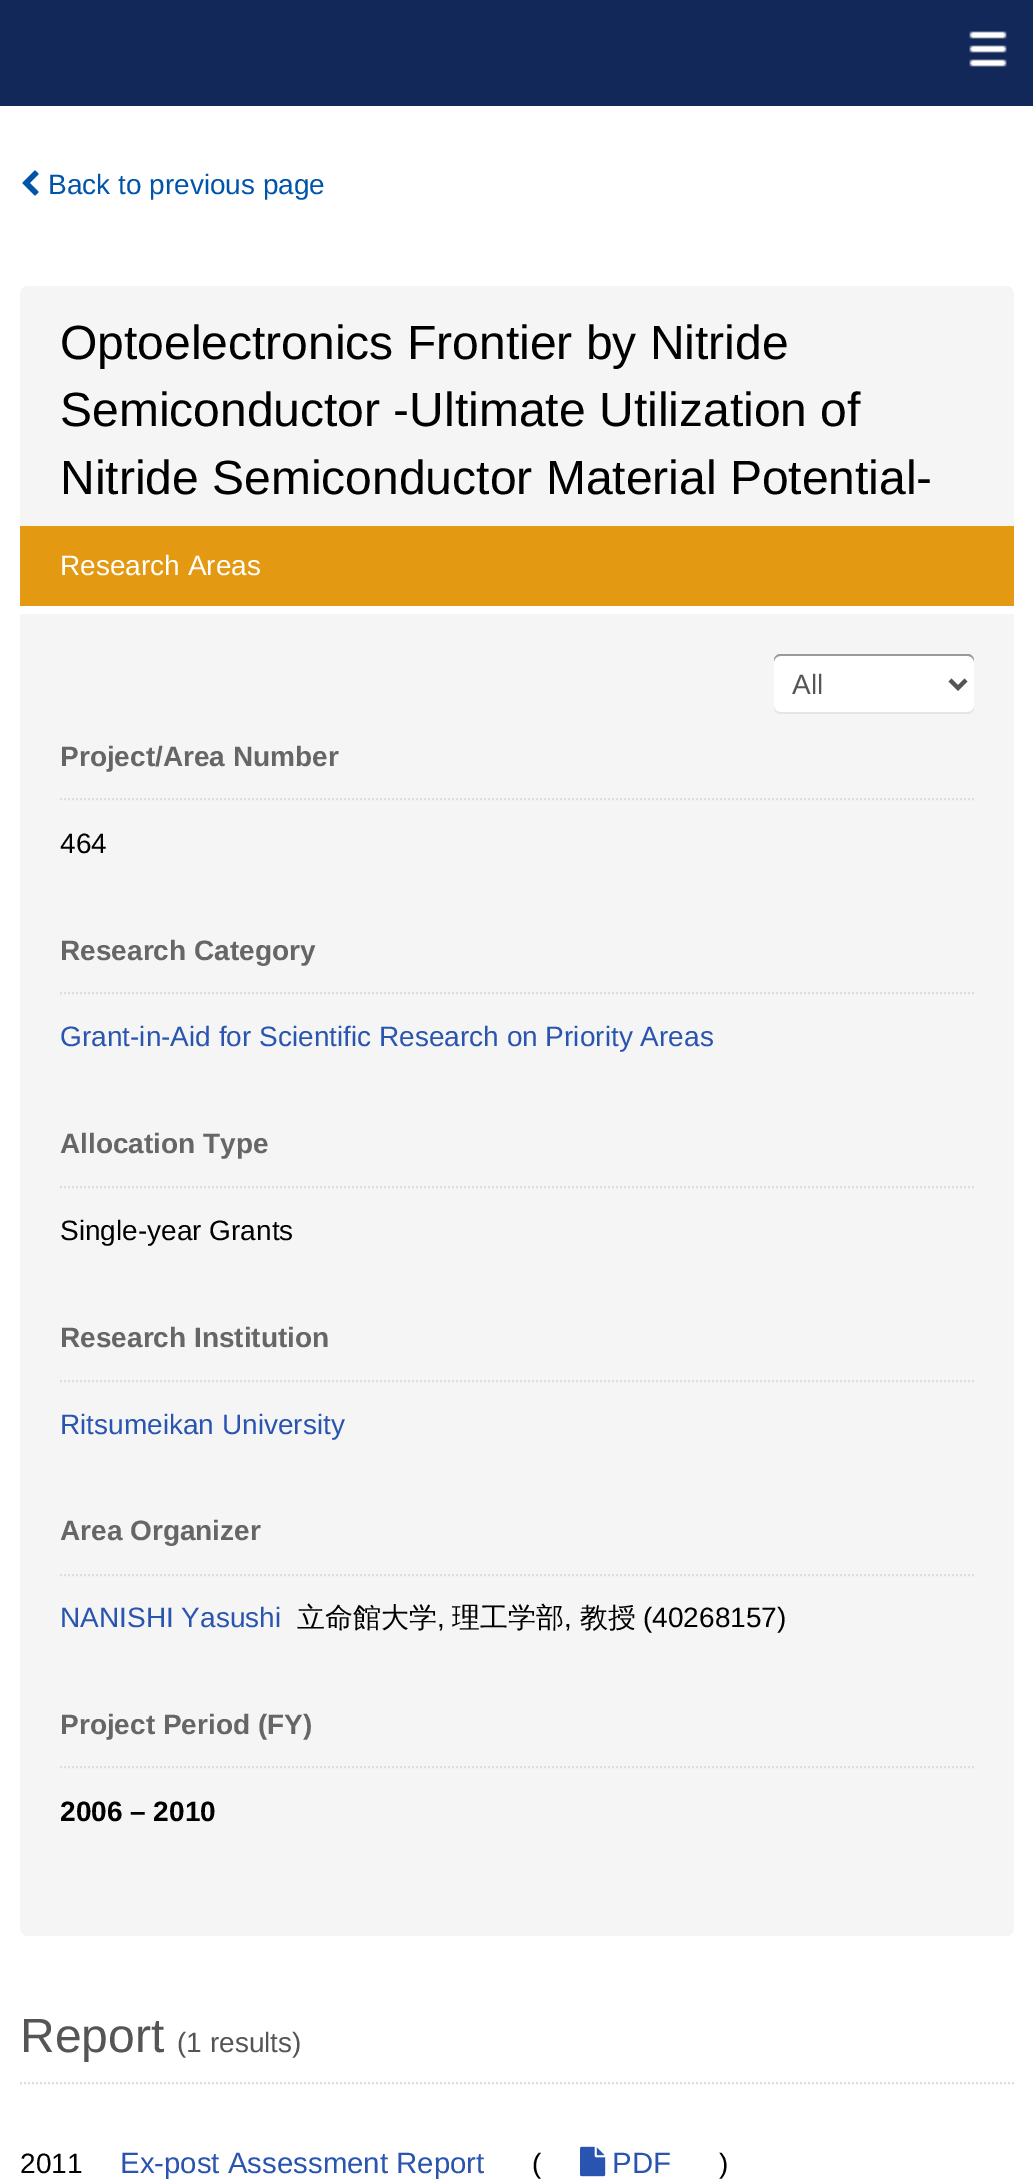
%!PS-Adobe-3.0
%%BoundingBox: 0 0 1033 2181
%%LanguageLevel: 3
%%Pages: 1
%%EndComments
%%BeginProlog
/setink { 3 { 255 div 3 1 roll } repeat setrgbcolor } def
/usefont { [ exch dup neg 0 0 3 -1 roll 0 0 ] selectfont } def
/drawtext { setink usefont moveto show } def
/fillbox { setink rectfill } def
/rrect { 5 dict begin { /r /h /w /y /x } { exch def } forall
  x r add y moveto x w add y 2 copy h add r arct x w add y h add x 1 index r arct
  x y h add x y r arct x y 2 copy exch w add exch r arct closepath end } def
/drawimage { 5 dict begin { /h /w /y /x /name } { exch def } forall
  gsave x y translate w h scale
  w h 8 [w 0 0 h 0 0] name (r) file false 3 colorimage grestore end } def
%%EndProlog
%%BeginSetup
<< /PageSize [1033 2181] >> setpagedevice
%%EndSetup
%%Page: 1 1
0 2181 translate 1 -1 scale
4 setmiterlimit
0 0 1033 2181 255 255 255 fillbox
0 0 1033 106 18 40 88 fillbox
(assets/img1.rgb) 969 31 38 36 drawimage
(assets/img2.rgb) 22 170 17 26 drawimage
(Back to previous page) 48 194 /LiberationSans-Regular 28 0 85 170 drawtext
245 245 245 setink
20 286 994 1650 8 rrect fill
(Optoelectronics Frontier by Nitride) 60 359 /LiberationSans-Regular 48 0 0 0 drawtext
(Semiconductor -Ultimate Utilization of) 60 426 /LiberationSans-Regular 48 0 0 0 drawtext
(Nitride Semiconductor Material Potential-) 60 494 /LiberationSans-Regular 48 0 0 0 drawtext
20 526 994 80 228 153 18 fillbox
(Research Areas) 60 575 /LiberationSans-Regular 28 255 255 255 drawtext
20 606 994 8 255 255 255 fillbox
774 654 200 60 6 rrect fill
229 229 229 setink
774 706 moveto 774 708 lineto 774 711 777 714 780 714 curveto 968 714 lineto 971 714 974 711 974 708 curveto 974 706 lineto 974 709 971 712 968 712 curveto 780 712 lineto 777 712 774 709 774 706 curveto closepath fill
153 153 153 setink
780 656 moveto 968 656 lineto 971 656 974 659 974 662 curveto 974 660 lineto 974 657 971 654 968 654 curveto 780 654 lineto 777 654 774 657 774 660 curveto 774 662 lineto 774 659 777 656 780 656 curveto closepath fill
85 85 85 setink
4 setlinewidth
950 680 moveto 958 688 lineto 966 680 lineto stroke
(All) 792 694 /LiberationSans-Regular 28 85 85 85 drawtext
221 221 221 setink
2 setlinewidth
[2 2] 0 setdash
60 799 moveto 974 799 lineto stroke
(Project/Area Number) 60 766 /LiberationSans-Bold 28 102 102 102 drawtext
(464) 60 853 /LiberationSans-Regular 28 0 0 0 drawtext
221 221 221 setink
60 993 moveto 974 993 lineto stroke
(Research Category) 60 960 /LiberationSans-Bold 28 102 102 102 drawtext
(Grant-in-Aid for Scientific Research on Priority Areas) 60 1046 /LiberationSans-Regular 28 41 84 175 drawtext
221 221 221 setink
60 1187 moveto 974 1187 lineto stroke
(Allocation Type) 60 1153 /LiberationSans-Bold 28 102 102 102 drawtext
(Single-year Grants) 60 1240 /LiberationSans-Regular 28 0 0 0 drawtext
221 221 221 setink
60 1381 moveto 974 1381 lineto stroke
(Research Institution) 60 1347 /LiberationSans-Bold 28 102 102 102 drawtext
(Ritsumeikan University) 60 1434 /LiberationSans-Regular 28 41 84 175 drawtext
221 221 221 setink
60 1575 moveto 974 1575 lineto stroke
(Area Organizer) 60 1540 /LiberationSans-Bold 28 102 102 102 drawtext
(NANISHI Yasushi) 60 1627 /LiberationSans-Regular 28 41 84 175 drawtext
(立命館大学) 297 1627 /WenQuanYiZenHei-Medium 28 0 0 0 drawtext
(,) 437 1627 /LiberationSans-Regular 28 0 0 0 drawtext
(理工学部) 452 1627 /WenQuanYiZenHei-Medium 28 0 0 0 drawtext
(,) 564 1627 /LiberationSans-Regular 28 0 0 0 drawtext
(教授) 580 1627 /WenQuanYiZenHei-Medium 28 0 0 0 drawtext
(\(40268157\)) 643 1627 /LiberationSans-Regular 28 0 0 0 drawtext
221 221 221 setink
60 1767 moveto 974 1767 lineto stroke
(Project Period \(FY\)) 60 1734 /LiberationSans-Bold 28 102 102 102 drawtext
(2006 – 2010) 60 1821 /LiberationSans-Bold 28 0 0 0 drawtext
221 221 221 setink
20 2083 moveto 1014 2083 lineto stroke
(Report) 20 2052 /LiberationSans-Regular 48 85 85 85 drawtext
(\(1 results\)) 177 2052 /LiberationSans-Regular 28 85 85 85 drawtext
(2011) 20 2173 /LiberationSans-Regular 28 0 0 0 drawtext
(Ex-post Assessment Report) 120 2173 /LiberationSans-Regular 29.4 41 84 175 drawtext
(\() 532 2173 /LiberationSans-Regular 28 0 0 0 drawtext
(assets/img3.rgb) 580 2146 26 31 drawimage
(PDF) 612 2173 /LiberationSans-Regular 29.4 41 84 175 drawtext
(\)) 719 2173 /LiberationSans-Regular 28 0 0 0 drawtext
showpage
%%EOF
